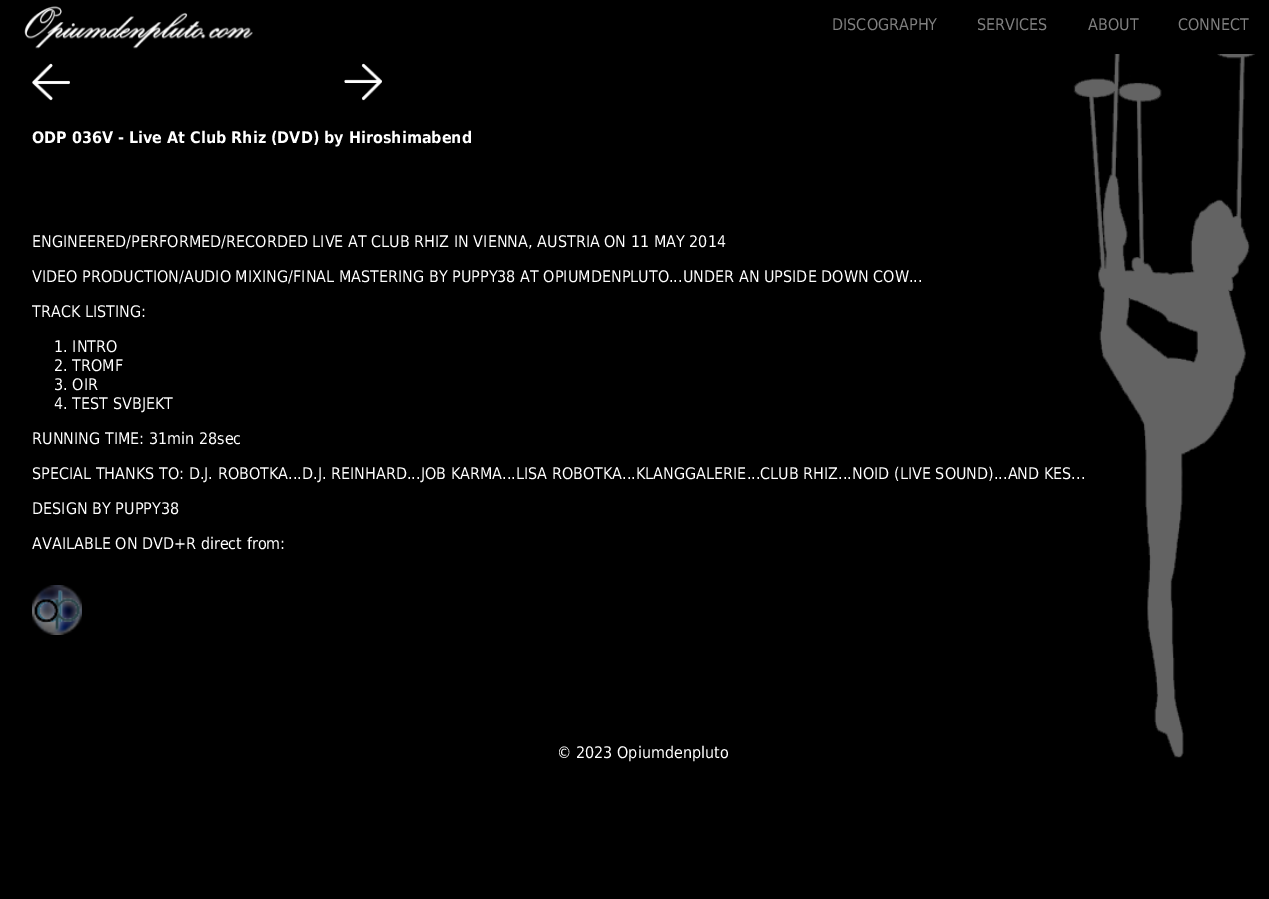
%!PS-Adobe-3.0
%%BoundingBox: 0 0 1269 899
%%LanguageLevel: 3
%%Pages: 1
%%EndComments
%%BeginProlog
/setink { 3 { 255 div 3 1 roll } repeat setrgbcolor } def
/usefont { [ exch dup neg 0 0 3 -1 roll 0 0 ] selectfont } def
/drawtext { setink usefont moveto show } def
/fillbox { setink rectfill } def
/drawimage { 5 dict begin { /h /w /y /x /name } { exch def } forall
  gsave x y translate w h scale
  w h 8 [w 0 0 h 0 0] name (r) file false 3 colorimage grestore end } def
%%EndProlog
%%BeginSetup
<< /PageSize [1269 899] >> setpagedevice
%%EndSetup
%%Page: 1 1
0 899 translate 1 -1 scale
4 setmiterlimit
0 0 1269 899 0 0 0 fillbox
(assets/img1.rgb) 1073 54 186 704 drawimage
(assets/img2.rgb) 24 6 229 43 drawimage
(DISCOGRAPHY) 832 30 /DejaVuSans-Regular 16 128 128 128 drawtext
(SERVICES) 977 30 /DejaVuSans-Regular 16 128 128 128 drawtext
(ABOUT) 1088 30 /DejaVuSans-Regular 16 128 128 128 drawtext
(CONNECT) 1178 30 /DejaVuSans-Regular 16 128 128 128 drawtext
(assets/img3.rgb) 32 63 38 38 drawimage
(assets/img4.rgb) 344 63 38 38 drawimage
(ODP 036V - Live At Club Rhiz \(DVD\) by Hiroshimabend) 32 143 /DejaVuSans-Bold 16 255 255 255 drawtext
(ENGINEERED/PERFORMED/RECORDED LIVE AT CLUB RHIZ IN VIENNA, AUSTRIA ON 11 MAY 2014) 32 247 /DejaVuSans-Regular 16 255 255 255 drawtext
(VIDEO PRODUCTION/AUDIO MIXING/FINAL MASTERING BY PUPPY38 AT OPIUMDENPLUTO...UNDER AN UPSIDE DOWN COW...) 32 282 /DejaVuSans-Regular 16 255 255 255 drawtext
(TRACK LISTING:) 32 317 /DejaVuSans-Regular 16 255 255 255 drawtext
(1. INTRO) 54 352 /DejaVuSans-Regular 16 255 255 255 drawtext
(2. TROMF) 54 371 /DejaVuSans-Regular 16 255 255 255 drawtext
(3. OIR) 54 390 /DejaVuSans-Regular 16 255 255 255 drawtext
(4. TEST SVBJEKT) 54 409 /DejaVuSans-Regular 16 255 255 255 drawtext
(RUNNING TIME: 31min 28sec) 32 444 /DejaVuSans-Regular 16 255 255 255 drawtext
(SPECIAL THANKS TO: D.J. ROBOTKA...D.J. REINHARD...JOB KARMA...LISA ROBOTKA...KLANGGALERIE...CLUB RHIZ...NOID \(LIVE SOUND\)...AND KES...) 32 479 /DejaVuSans-Regular 16 255 255 255 drawtext
(DESIGN BY PUPPY38) 32 514 /DejaVuSans-Regular 16 255 255 255 drawtext
(AVAILABLE ON DVD+R direct from:) 32 549 /DejaVuSans-Regular 16 255 255 255 drawtext
(assets/img5.rgb) 32 585 50 50 drawimage
(© 2023 Opiumdenpluto) 557 758 /DejaVuSans-Regular 16 255 255 255 drawtext
showpage
%%EOF
